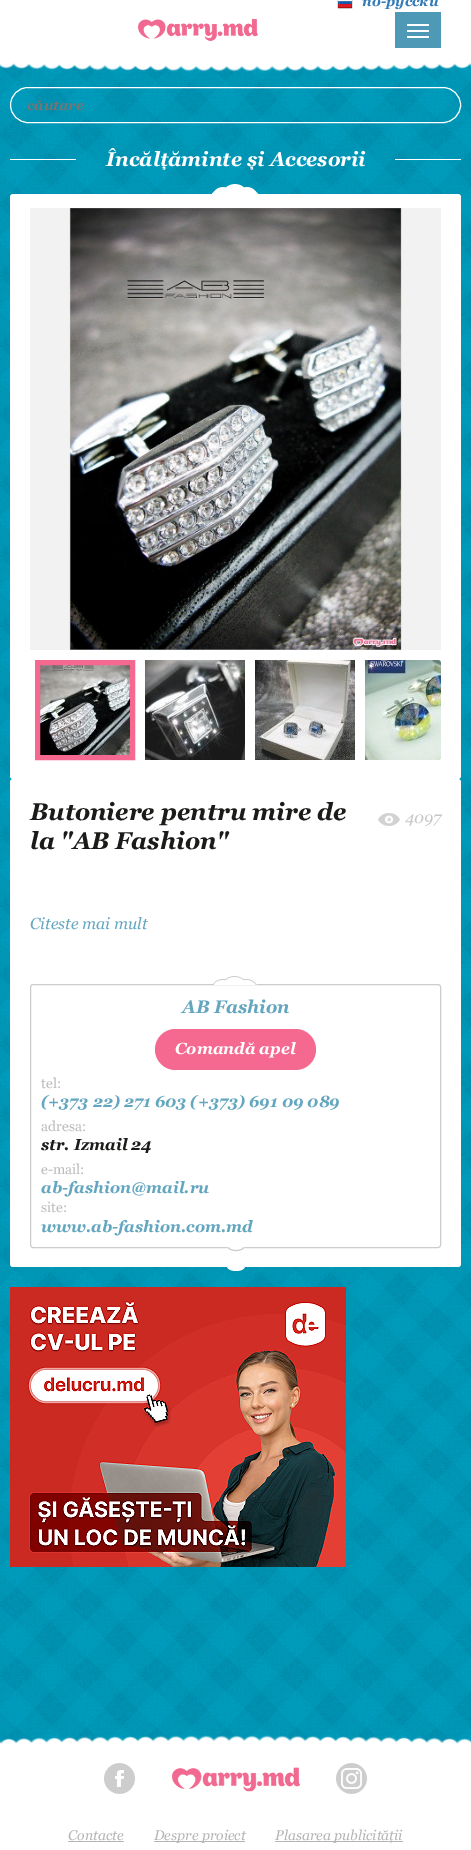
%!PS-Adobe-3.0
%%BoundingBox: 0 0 471 1850
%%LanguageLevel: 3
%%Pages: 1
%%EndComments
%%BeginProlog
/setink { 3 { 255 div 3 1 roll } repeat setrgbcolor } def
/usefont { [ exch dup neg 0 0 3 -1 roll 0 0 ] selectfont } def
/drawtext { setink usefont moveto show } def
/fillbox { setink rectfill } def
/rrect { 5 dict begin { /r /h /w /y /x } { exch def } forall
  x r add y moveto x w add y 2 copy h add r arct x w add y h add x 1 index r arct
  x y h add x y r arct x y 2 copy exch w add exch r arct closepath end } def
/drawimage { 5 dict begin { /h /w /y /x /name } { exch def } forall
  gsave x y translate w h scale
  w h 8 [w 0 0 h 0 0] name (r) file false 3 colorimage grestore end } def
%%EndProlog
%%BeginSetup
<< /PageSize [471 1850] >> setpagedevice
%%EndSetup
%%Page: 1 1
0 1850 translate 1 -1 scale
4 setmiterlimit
0 0 471 1850 255 255 255 fillbox
(assets/img1.rgb) 0 62 471 1683 drawimage
(assets/img2.rgb) 337 0 16 9 drawimage
(по-русски) 362 6 /Georgia-BoldItalic 14 51 122 183 drawtext
(assets/img3.rgb) 138 19 120 22 drawimage
395 12 46 36 78 153 182 fillbox
255 255 255 setink
407 24 22 2 1 rrect fill
407 30 22 2 1 rrect fill
407 36 22 2 1 rrect fill
(assets/img4.rgb) 0 52 471 20 drawimage
10.5 87.5 450 35 17.5 rrect stroke
(căutare) 27 110 /Georgia-BoldItalic 14 117 117 117 drawtext
10 159 66 1 255 255 255 fillbox
gsave
10 148 451 22 rectclip
(Încălțăminte și Accesorii) 106 166 /Georgia-BoldItalic 20 255 255 255 drawtext
grestore
395 159 66 1 255 255 255 fillbox
10 194 451 585 3 rrect fill
(assets/img5.rgb) 212 184 46 10 drawimage
30 208 411 442 242 242 242 fillbox
(assets/img6.rgb) 69 208 333 442 drawimage
(assets/img7.rgb) 40 665 90 90 drawimage
245 105 145 setink
5 setlinewidth
37.5 662.5 95 95 rectstroke
(assets/img8.rgb) 145 660 100 100 drawimage
(assets/img9.rgb) 255 660 100 100 drawimage
(assets/img10.rgb) 365 660 76 100 drawimage
255 255 255 setink
236 773 moveto 241 773 245 775 245 778 curveto 245 781 241 783 236 783 curveto 231 783 227 781 227 778 curveto 227 775 231 773 236 773 curveto closepath fill
10 779 451 488 3 rrect fill
(Butoniere pentru mire de) 30 820 /Georgia-BoldItalic 24 27 27 25 drawtext
(la "AB Fashion") 30 849 /Georgia-BoldItalic 24 27 27 25 drawtext
(assets/img11.rgb) 378 813 22 13 drawimage
(4097) 405 823 /Georgia-Italic 16 198 198 198 drawtext
(Citeste mai mult) 30 929 /Georgia-Italic 16 99 166 191 drawtext
204 204 204 setink
1 setlinewidth
30.5 984.5 410 263 2.5 rrect stroke
(assets/img12.rgb) 212 976 46 9 drawimage
(AB Fashion) 182 1013 /Georgia-BoldItalic 18 99 166 191 drawtext
245 105 145 setink
155 1029 161 41 20.5 rrect fill
(Comandă apel) 175 1054 /Georgia-BoldItalic 16 255 255 255 drawtext
(tel:) 41 1088 /Georgia-Regular 14 187 187 187 drawtext
(\(+373 22\) 271 603 \(+373\) 691 09 089) 41 1107 /Georgia-BoldItalic 16 99 166 191 drawtext
(adresa:) 41 1131 /Georgia-Regular 14 187 187 187 drawtext
(str. Izmail 24) 41 1150 /Georgia-BoldItalic 16 27 27 25 drawtext
(e-mail:) 41 1174 /Georgia-Regular 14 187 187 187 drawtext
(ab-fashion@mail.ru) 41 1193 /Georgia-BoldItalic 16 99 166 191 drawtext
(site:) 41 1212 /Georgia-Regular 14 187 187 187 drawtext
(www.ab-fashion.com.md) 41 1232 /Georgia-BoldItalic 16 99 166 191 drawtext
255 255 255 setink
236 1241 moveto 241 1241 245 1243 245 1246 curveto 245 1249 241 1251 236 1251 curveto 231 1251 227 1249 227 1246 curveto 227 1243 231 1241 236 1241 curveto closepath fill
204 204 204 setink
236 1241.5 moveto 247 1241.5 247 1250.5 236 1250.5 curveto 225 1250.5 225 1241.5 236 1241.5 curveto closepath stroke
227 1241 18 6 255 255 255 fillbox
236 1261 moveto 241 1261 245 1263 245 1266 curveto 245 1269 241 1271 236 1271 curveto 231 1271 227 1269 227 1266 curveto 227 1263 231 1261 236 1261 curveto closepath fill
(assets/img13.rgb) 10 1287 336 280 drawimage
(assets/img14.rgb) 0 1735 471 40 drawimage
(assets/img15.rgb) 104 1763 31 31 drawimage
(assets/img16.rgb) 172 1767 128 25 drawimage
(assets/img17.rgb) 336 1763 31 31 drawimage
(Contacte) 68 1840 /Georgia-Italic 14 181 181 181 drawtext
68 1841 56 1 181 181 181 fillbox
154 1841 91 1 181 181 181 fillbox
(Despre proiect) 154 1840 /Georgia-Italic 14 181 181 181 drawtext
275 1841 128 1 181 181 181 fillbox
(Plasarea publicității) 275 1840 /Georgia-Italic 14 181 181 181 drawtext
showpage
%%EOF
